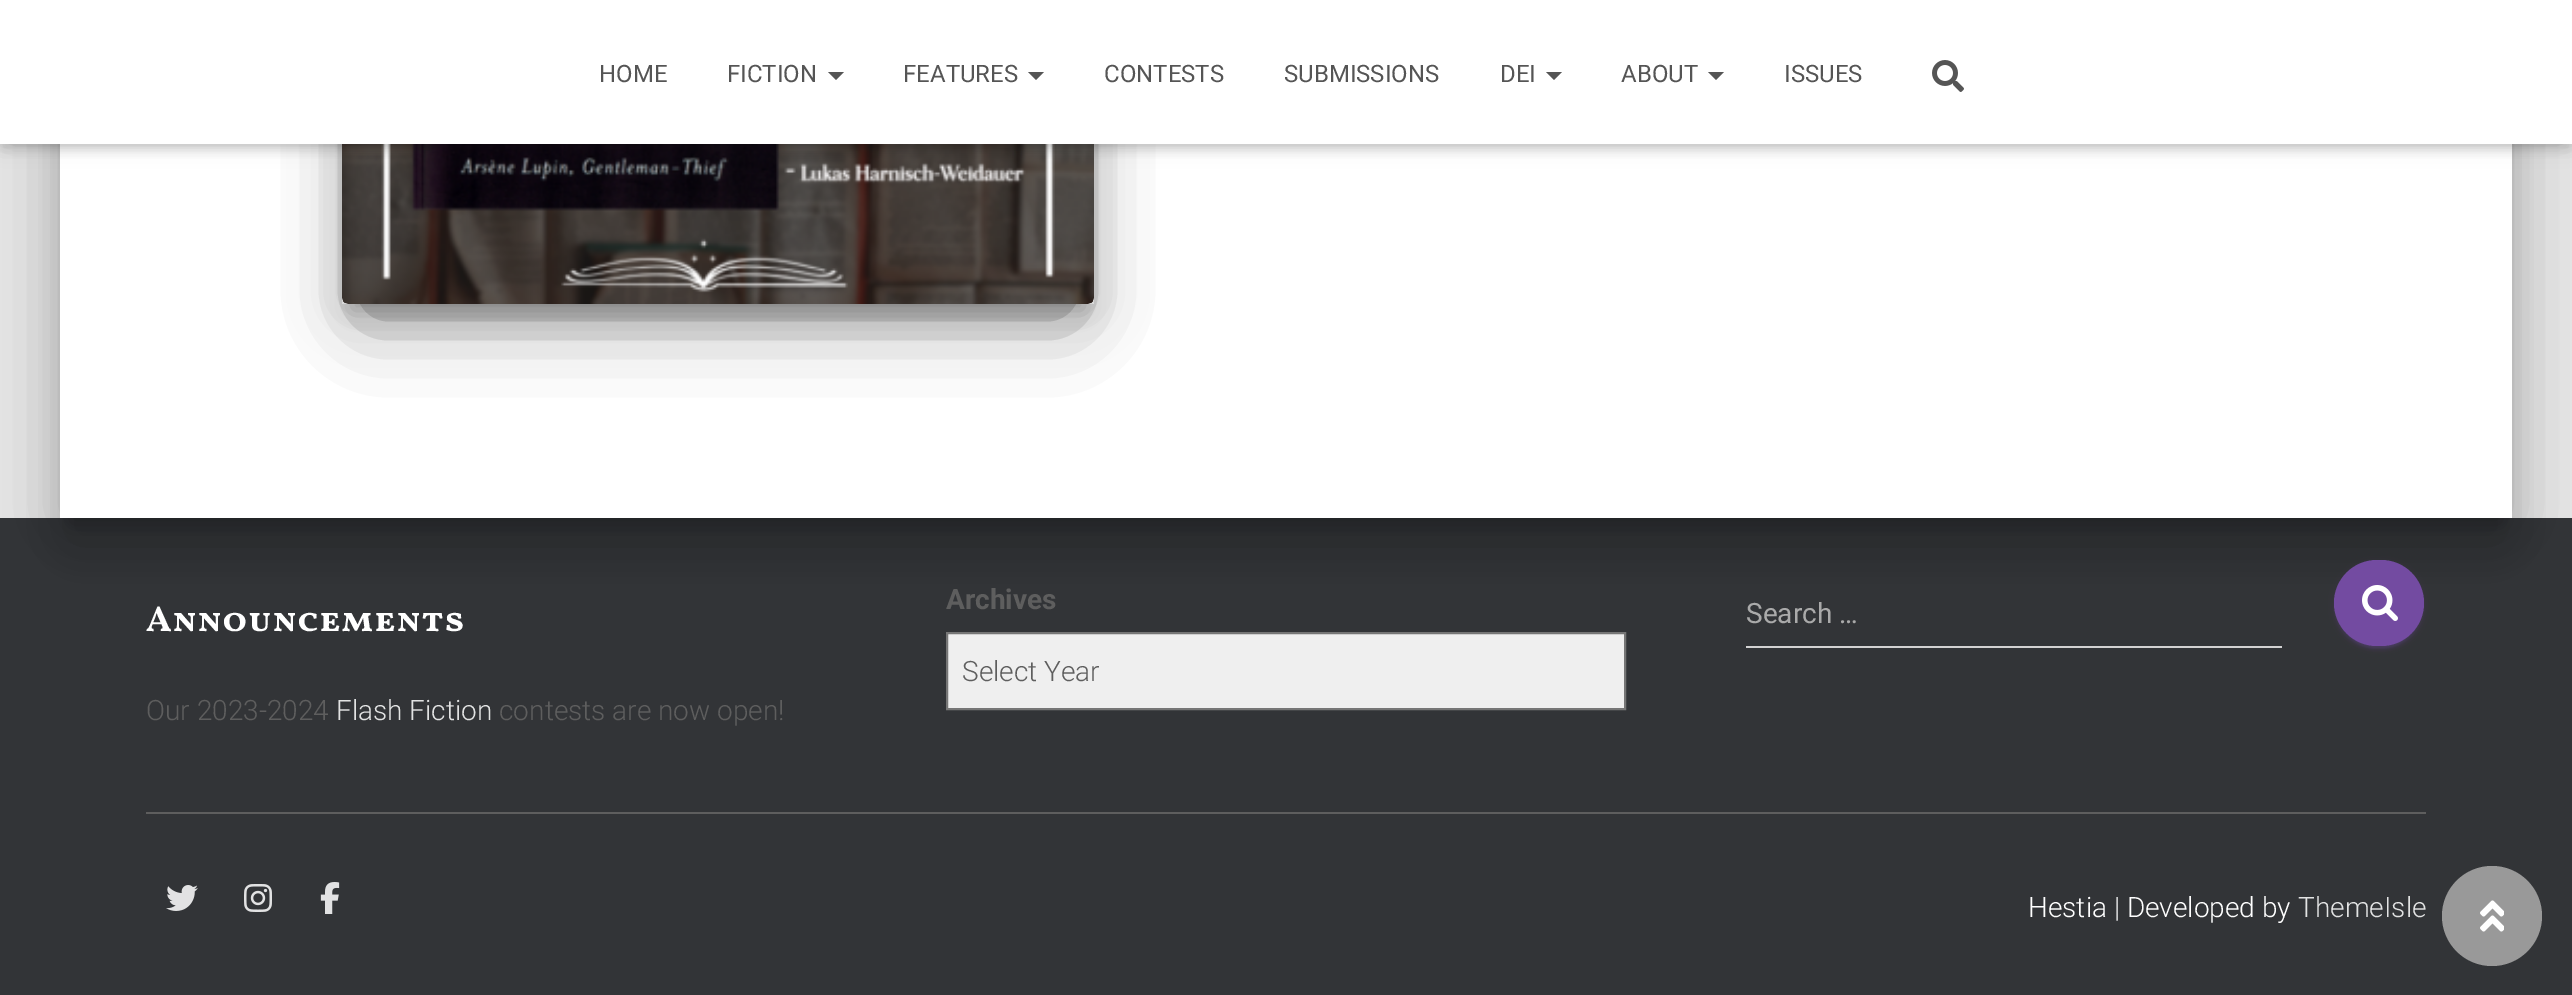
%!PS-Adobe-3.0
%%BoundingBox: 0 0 2572 995
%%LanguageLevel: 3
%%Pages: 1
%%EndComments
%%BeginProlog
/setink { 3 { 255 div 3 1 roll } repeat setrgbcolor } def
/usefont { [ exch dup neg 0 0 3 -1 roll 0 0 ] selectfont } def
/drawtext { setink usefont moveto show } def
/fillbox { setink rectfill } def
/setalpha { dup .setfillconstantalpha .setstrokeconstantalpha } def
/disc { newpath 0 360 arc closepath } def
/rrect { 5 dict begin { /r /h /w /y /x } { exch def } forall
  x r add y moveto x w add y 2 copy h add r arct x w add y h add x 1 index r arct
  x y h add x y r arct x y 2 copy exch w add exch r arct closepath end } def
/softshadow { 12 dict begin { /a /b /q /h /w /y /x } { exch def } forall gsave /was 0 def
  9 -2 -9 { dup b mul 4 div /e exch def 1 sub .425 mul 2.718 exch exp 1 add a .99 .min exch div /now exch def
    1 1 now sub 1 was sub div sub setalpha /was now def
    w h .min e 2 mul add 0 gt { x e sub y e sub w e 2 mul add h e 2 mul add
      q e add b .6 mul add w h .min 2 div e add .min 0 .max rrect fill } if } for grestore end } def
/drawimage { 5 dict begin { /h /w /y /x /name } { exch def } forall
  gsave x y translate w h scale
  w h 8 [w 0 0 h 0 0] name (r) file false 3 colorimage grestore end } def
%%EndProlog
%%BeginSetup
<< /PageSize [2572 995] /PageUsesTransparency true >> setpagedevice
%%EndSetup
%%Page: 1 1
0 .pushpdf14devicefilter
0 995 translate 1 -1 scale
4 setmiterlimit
0 0 2572 995 229 229 229 fillbox
0 518 2572 477 50 52 55 fillbox
0 0 0 setink
70 -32 2432 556 2 10 0.2 softshadow
50 -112 2472 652 22 30 0.12 softshadow
56 -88 2460 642 16 24 0.14 softshadow
60 144 2452 374 255 255 255 fillbox
0 0 0 setink
352 -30 732 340 0 10 0.2 softshadow
342 -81 752 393 6 25 0.12 softshadow
366 -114 704 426 0 38 0.56 softshadow
(assets/img1.rgb) 342 144 752 160 drawimage
4 12 2564 136 0 5 0.1 softshadow
0 2 2572 144 0 10 0.12 softshadow
12 14 2548 120 0 10 0.42 softshadow
0 0 2572 144 255 255 255 fillbox
(HOME) 599 82 /Roboto-Regular 24 85 85 85 drawtext
(FICTION) 727 82 /Roboto-Regular 24 85 85 85 drawtext
828 72 moveto 844 72 lineto 836 80 lineto closepath fill
(FEATURES) 903 82 /Roboto-Regular 24 85 85 85 drawtext
1028 72 moveto 1044 72 lineto 1036 80 lineto closepath fill
(CONTESTS) 1104 82 /Roboto-Regular 24 85 85 85 drawtext
(SUBMISSIONS) 1284 82 /Roboto-Regular 24 85 85 85 drawtext
(DEI) 1500 82 /Roboto-Regular 24 85 85 85 drawtext
1546 72 moveto 1562 72 lineto 1554 80 lineto closepath fill
(ABOUT) 1621 82 /Roboto-Regular 24 85 85 85 drawtext
1708 72 moveto 1724 72 lineto 1716 80 lineto closepath fill
(ISSUES) 1784 82 /Roboto-Regular 24 85 85 85 drawtext
(assets/img2.rgb) 1932 60 32 32 drawimage
(Announcements) 146 631 /VollkornSC-Bold 36 255 255 255 drawtext
(Our 2023-2024) 146 720 /Roboto-Light 28 94 94 94 drawtext
(Flash Fiction) 336 720 /Roboto-Light 28 226 227 227 drawtext
(contests are now open!) 499 720 /Roboto-Light 28 94 94 94 drawtext
(Archives) 946 609 /Roboto-Bold 28 94 94 94 drawtext
239 239 239 setink
947 633 moveto 1625 633 lineto 1625 709 lineto 947 709 lineto closepath gsave fill grestore
118 118 118 setink
2 setlinewidth
stroke
(Select Year) 962 681 /Roboto-Light 28 94 94 94 drawtext
(Search …) 1746 623 /Roboto-Regular 28 170 170 170 drawtext
1746 646 536 2 210 210 210 fillbox
115 75 161 setink
2334 562 90 86 43 5 0.12 softshadow
2338 570 82 78 39 1 0.2 softshadow
2334 564 90 86 43 2 0.14 softshadow
2334 560 90 86 43 rrect fill
(assets/img3.rgb) 2362 585 36 36 drawimage
146 812 2280 2 94 94 94 fillbox
(assets/img4.rgb) 166 885 32 26 drawimage
(assets/img5.rgb) 244 884 28 28 drawimage
(assets/img6.rgb) 320 882 20 32 drawimage
(Hestia | Developed by) 2028 917 /Roboto-Light 28 255 255 255 drawtext
(ThemeIsle) 2298 917 /Roboto-Light 28 226 227 227 drawtext
153 153 153 setink
2492 916 50 disc fill
(assets/img7.rgb) 2480 900 24 32 drawimage
.poppdf14devicefilter showpage
%%EOF
